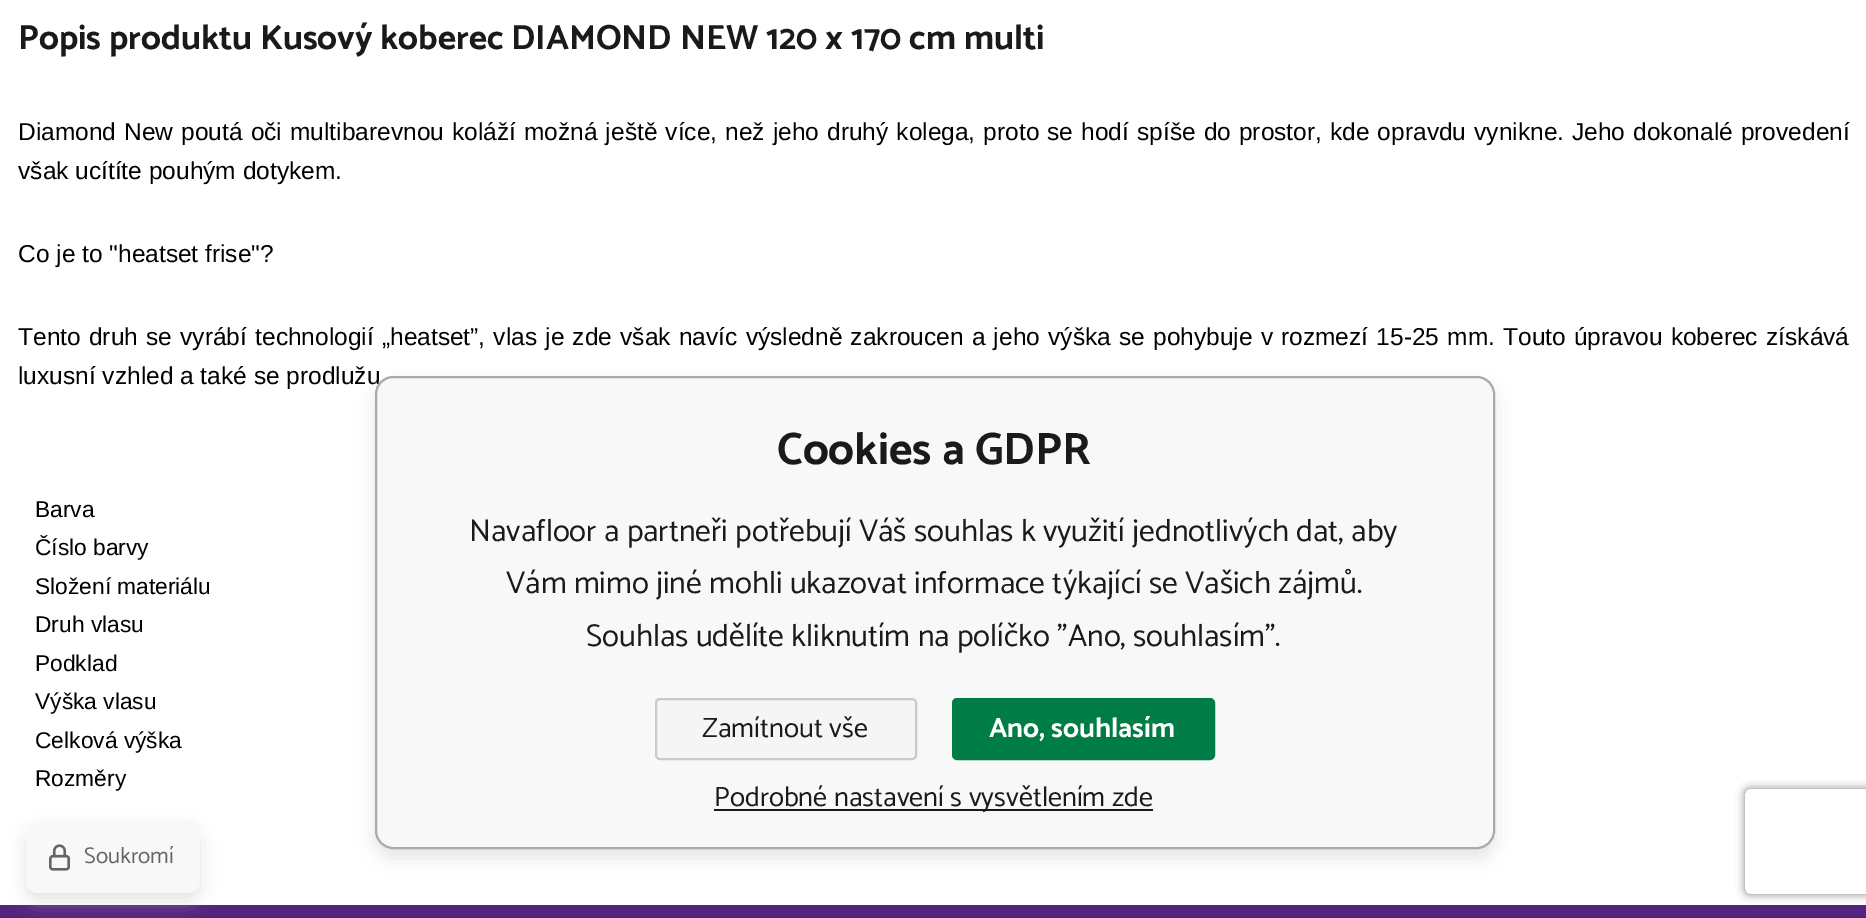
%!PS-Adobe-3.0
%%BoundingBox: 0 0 1866 918
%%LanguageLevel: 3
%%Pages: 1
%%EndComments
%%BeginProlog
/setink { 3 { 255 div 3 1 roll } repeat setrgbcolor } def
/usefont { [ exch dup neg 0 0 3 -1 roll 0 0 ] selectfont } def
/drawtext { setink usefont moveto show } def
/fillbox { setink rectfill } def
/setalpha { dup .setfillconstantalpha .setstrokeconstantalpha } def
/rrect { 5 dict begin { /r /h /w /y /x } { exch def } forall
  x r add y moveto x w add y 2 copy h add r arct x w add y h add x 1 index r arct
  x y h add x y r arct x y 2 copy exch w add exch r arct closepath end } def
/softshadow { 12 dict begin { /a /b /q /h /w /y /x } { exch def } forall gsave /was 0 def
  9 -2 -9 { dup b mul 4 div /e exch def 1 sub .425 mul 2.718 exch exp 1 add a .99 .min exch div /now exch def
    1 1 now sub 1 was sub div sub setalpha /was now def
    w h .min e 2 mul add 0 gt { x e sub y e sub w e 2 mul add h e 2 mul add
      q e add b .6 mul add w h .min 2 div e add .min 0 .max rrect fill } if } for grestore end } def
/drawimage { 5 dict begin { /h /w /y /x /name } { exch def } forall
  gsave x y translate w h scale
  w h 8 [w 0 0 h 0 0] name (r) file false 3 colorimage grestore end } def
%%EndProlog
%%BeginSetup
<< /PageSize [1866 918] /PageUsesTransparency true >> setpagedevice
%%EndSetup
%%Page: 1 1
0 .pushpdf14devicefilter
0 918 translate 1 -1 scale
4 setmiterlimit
0 0 1866 918 255 255 255 fillbox
(Popis produktu Kusový koberec DIAMOND NEW 120 x 170 cm multi) 18 49 /Catamaran-Bold 35 26 26 26 drawtext
/LiberationSans-Regular 24.5 usefont
0 0 0 setink
18 140 moveto 1.25 0 32 (Diamond New poutá oči multibarevnou koláží možná ještě více, než jeho druhý kolega, proto se hodí spíše do prostor, kde opravdu vynikne. Jeho dokonalé provedení) widthshow
(však ucítíte pouhým dotykem.) 18 179 /LiberationSans-Regular 24.5 0 0 0 drawtext
(Co je to "heatset frise"?) 18 262 /LiberationSans-Regular 24.5 0 0 0 drawtext
18 345 moveto 1.4 0 32 (Tento druh se vyrábí technologií „heatset”, vlas je zde však navíc výsledně zakroucen a jeho výška se pohybuje v rozmezí 15-25 mm. Touto úpravou koberec získává) widthshow
(luxusní vzhled a také se prodlužu) 18 384 /LiberationSans-Regular 24.5 0 0 0 drawtext
(Barva) 35 517 /LiberationSans-Regular 22.75 0 0 0 drawtext
(Číslo barvy) 35 555 /LiberationSans-Regular 22.75 0 0 0 drawtext
(Složení materiálu) 35 594 /LiberationSans-Regular 22.75 0 0 0 drawtext
(Druh vlasu) 35 632 /LiberationSans-Regular 22.75 0 0 0 drawtext
(Podklad) 35 671 /LiberationSans-Regular 22.75 0 0 0 drawtext
(Výška vlasu) 35 709 /LiberationSans-Regular 22.75 0 0 0 drawtext
(Celková výška) 35 748 /LiberationSans-Regular 22.75 0 0 0 drawtext
(Rozměry) 35 786 /LiberationSans-Regular 22.75 0 0 0 drawtext
200 200 200 setink
375 385 1120 473 18 9 0.5 softshadow
248 248 248 setink
376 377 1118 471 17 rrect gsave fill grestore
170 170 170 setink
2 setlinewidth
stroke
(Cookies a GDPR) 777 464 /Catamaran-Bold 45.5 26 26 26 drawtext
(Navafloor a partneři potřebují Váš souhlas k využití jednotlivých dat, aby) 469 541 /Catamaran-Regular 31.5 26 26 26 drawtext
(Vám mimo jiné mohli ukazovat informace týkající se Vašich zájmů.) 506 593 /Catamaran-Regular 31.5 26 26 26 drawtext
(Souhlas udělíte kliknutím na políčko "Ano, souhlasím".) 586 646 /Catamaran-Regular 31.5 26 26 26 drawtext
245 245 245 setink
656 699 260 60 4 rrect gsave fill grestore
202 202 202 setink
stroke
(Zamítnout vše) 702 737 /Catamaran-Regular 28 26 26 26 drawtext
0 124 71 setink
953 699 261 60 4 rrect gsave fill grestore
stroke
(Ano, souhlasím) 989 737 /Catamaran-Bold 28 255 255 255 drawtext
714 809 439 2 26 26 26 fillbox
(Podrobné nastavení s vysvětlením zde) 714 806 /Catamaran-Regular 28 26 26 26 drawtext
0 905 1866 13 82 35 127 fillbox
200 200 200 setink
26 830 174 71 12 9 0.5 softshadow
248 248 248 setink
26 821 174 72 12 rrect fill
(assets/img1.rgb) 49 844 21 27 drawimage
(Soukromí) 84 863 /Catamaran-Regular 22.75 100 100 100 drawtext
gsave
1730 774 moveto 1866 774 lineto 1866 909 lineto 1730 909 lineto closepath 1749 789 moveto 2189 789 lineto 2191 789 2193 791 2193 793 curveto 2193 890 lineto 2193 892 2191 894 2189 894 curveto 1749 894 lineto 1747 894 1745 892 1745 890 curveto 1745 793 lineto 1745 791 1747 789 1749 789 curveto closepath eoclip newpath
128 128 128 setink
1745 789 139 105 4 4.5 1 softshadow
grestore
.poppdf14devicefilter showpage
%%EOF
